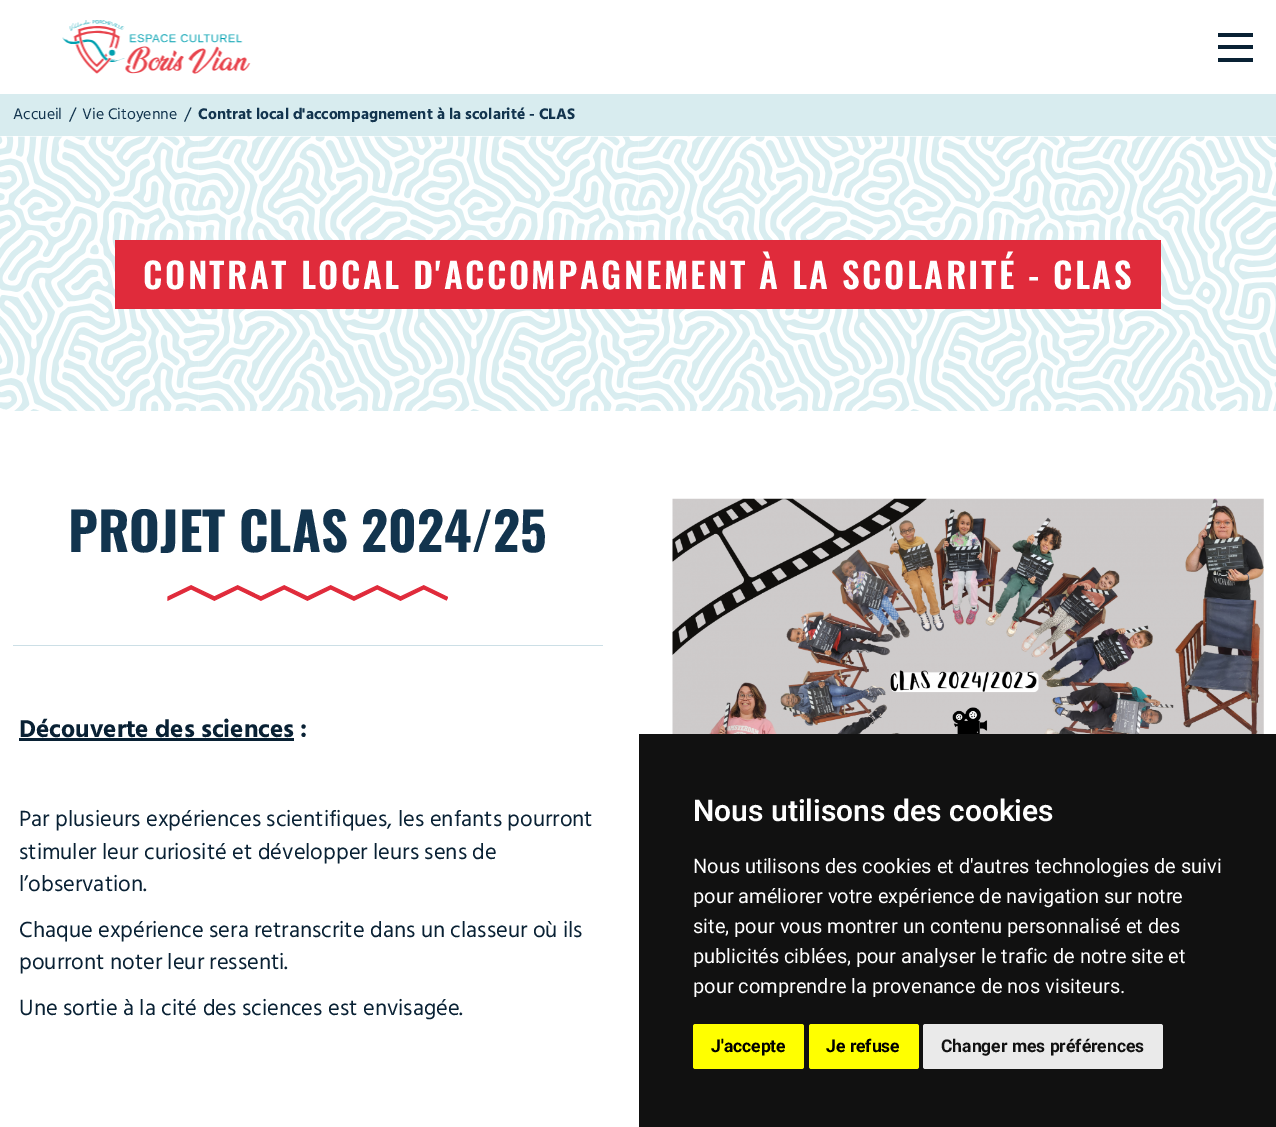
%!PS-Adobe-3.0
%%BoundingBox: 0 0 1276 1127
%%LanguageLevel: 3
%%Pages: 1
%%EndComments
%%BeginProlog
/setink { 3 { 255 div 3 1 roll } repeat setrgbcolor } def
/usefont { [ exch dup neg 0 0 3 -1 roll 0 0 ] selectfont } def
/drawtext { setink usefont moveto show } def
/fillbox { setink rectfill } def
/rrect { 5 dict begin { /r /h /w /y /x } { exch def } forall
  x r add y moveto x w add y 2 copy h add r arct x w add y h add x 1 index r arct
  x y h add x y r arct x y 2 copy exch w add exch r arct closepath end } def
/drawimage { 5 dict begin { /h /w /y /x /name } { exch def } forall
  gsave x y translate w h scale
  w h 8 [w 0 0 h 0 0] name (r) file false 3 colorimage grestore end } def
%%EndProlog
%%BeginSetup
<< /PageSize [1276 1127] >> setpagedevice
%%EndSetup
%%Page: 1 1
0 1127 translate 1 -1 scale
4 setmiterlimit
0 0 1276 1127 255 255 255 fillbox
(assets/img1.rgb) 62 20 189 54 drawimage
1218 33 35 4 9 33 52 fillbox
1218 45 35 4 9 33 52 fillbox
1218 58 35 4 9 33 52 fillbox
0 94 1276 42 216 236 239 fillbox
(Accueil) 13 119 /HindVadodara-Regular 15.75 18 52 78 drawtext
(/) 69 120 /HindVadodara-Regular 17.5 18 52 78 drawtext
(Vie Citoyenne) 82 119 /HindVadodara-Regular 15.75 18 52 78 drawtext
(/) 184 120 /HindVadodara-Regular 17.5 18 52 78 drawtext
(Contrat local d'accompagnement à la scolarité - CLAS) 198 119 /HindVadodara-Bold 15.75 18 52 78 drawtext
(assets/img2.rgb) 0 136 1276 275 drawimage
115 240 1046 69 224 43 59 fillbox
/Oswald-SemiBold 35 usefont
255 255 255 setink
143 289 moveto 2.5 0 (CONTRAT LOCAL D'ACCOMPAGNEMENT À LA SCOLARITÉ - CLAS) ashow
(PROJET CLAS 2024/25) 68 552 /Oswald-Bold 52.5 18 52 78 drawtext
(assets/img3.rgb) 167 585 281 16 drawimage
13 645 590 1 204 223 230 fillbox
(Découverte des sciences :) 19 737 /HindVadodara-Bold 25 9 33 52 drawtext
19 738 275 3 9 33 52 fillbox
(Par plusieurs expériences scientifiques, les enfants pourront) 19 826 /HindVadodara-Regular 22.5 9 33 52 drawtext
(stimuler leur curiosité et développer leurs sens de) 19 859 /HindVadodara-Regular 22.5 9 33 52 drawtext
(l’observation.) 19 891 /HindVadodara-Regular 22.5 9 33 52 drawtext
(Chaque expérience sera retranscrite dans un classeur où ils) 19 937 /HindVadodara-Regular 22.5 9 33 52 drawtext
(pourront noter leur ressenti.) 19 969 /HindVadodara-Regular 22.5 9 33 52 drawtext
(Une sortie à la cité des sciences est envisagée.) 19 1015 /HindVadodara-Regular 22.5 9 33 52 drawtext
(assets/img4.rgb) 672 498 592 236 drawimage
639 734 637 393 17 17 17 fillbox
(Nous utilisons des cookies) 693 821 /Roboto-SemiBold 30 255 255 255 drawtext
(Nous utilisons des cookies et d'autres technologies de suivi) 693 873 /Roboto-Regular 20 255 255 255 drawtext
(pour améliorer votre expérience de navigation sur notre) 693 903 /Roboto-Regular 20 255 255 255 drawtext
(site, pour vous montrer un contenu personnalisé et des) 693 933 /Roboto-Regular 20 255 255 255 drawtext
(publicités ciblées, pour analyser le trafic de notre site et) 693 963 /Roboto-Regular 20 255 255 255 drawtext
(pour comprendre la provenance de nos visiteurs.) 693 993 /Roboto-Regular 20 255 255 255 drawtext
255 255 0 setink
693 1024 111 45 2.5 rrect fill
(J'accepte) 711 1052 /Roboto-Bold 17.5 0 0 0 drawtext
255 255 0 setink
809 1024 110 45 2.5 rrect fill
(Je refuse) 826 1052 /Roboto-Bold 17.5 0 0 0 drawtext
234 234 234 setink
923 1024 240 45 2.5 rrect fill
(Changer mes préférences) 941 1052 /Roboto-Bold 17.5 17 17 17 drawtext
showpage
%%EOF
